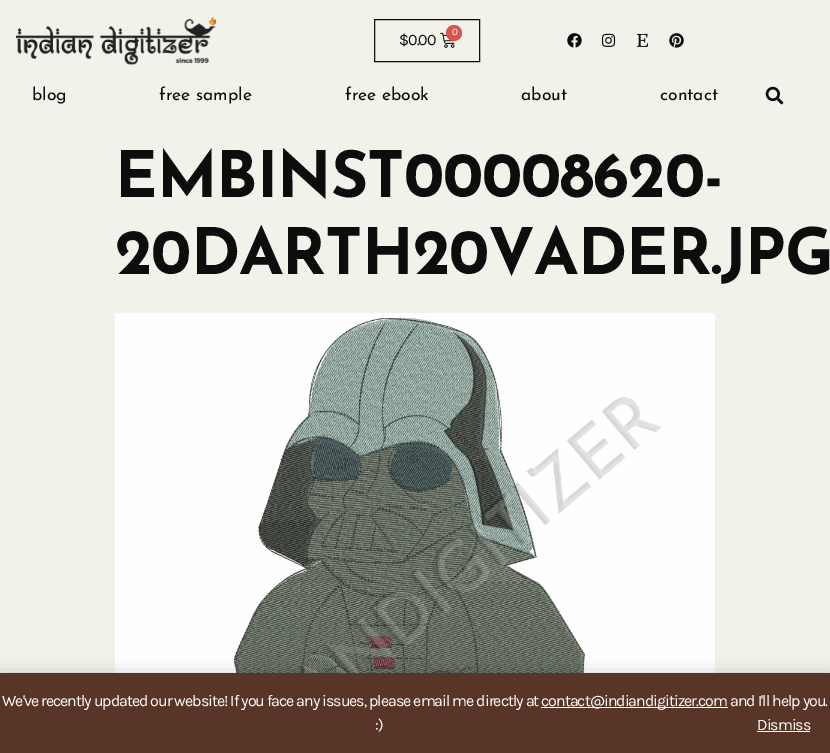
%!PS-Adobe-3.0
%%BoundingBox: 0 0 830 753
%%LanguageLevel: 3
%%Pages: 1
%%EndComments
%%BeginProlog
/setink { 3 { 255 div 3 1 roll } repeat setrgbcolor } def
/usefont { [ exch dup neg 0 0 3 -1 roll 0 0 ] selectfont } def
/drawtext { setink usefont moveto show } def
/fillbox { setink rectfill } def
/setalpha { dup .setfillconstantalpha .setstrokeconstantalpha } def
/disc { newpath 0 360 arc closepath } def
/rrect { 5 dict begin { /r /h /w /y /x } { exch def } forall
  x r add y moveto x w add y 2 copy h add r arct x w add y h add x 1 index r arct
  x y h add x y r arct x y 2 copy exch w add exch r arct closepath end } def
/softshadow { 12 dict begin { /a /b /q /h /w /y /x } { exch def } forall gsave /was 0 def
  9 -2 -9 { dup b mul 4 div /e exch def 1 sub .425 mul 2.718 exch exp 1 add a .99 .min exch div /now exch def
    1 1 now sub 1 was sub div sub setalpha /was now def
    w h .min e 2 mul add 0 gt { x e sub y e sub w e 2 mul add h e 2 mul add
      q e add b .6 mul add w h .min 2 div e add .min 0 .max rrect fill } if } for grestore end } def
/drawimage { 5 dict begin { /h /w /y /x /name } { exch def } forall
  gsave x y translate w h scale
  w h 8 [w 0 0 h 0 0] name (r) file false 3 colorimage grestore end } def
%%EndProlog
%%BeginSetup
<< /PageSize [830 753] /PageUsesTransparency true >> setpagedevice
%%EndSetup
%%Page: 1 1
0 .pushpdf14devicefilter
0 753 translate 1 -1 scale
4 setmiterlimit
0 0 830 753 242 242 235 fillbox
(assets/img1.rgb) 16 16 200 49 drawimage
13 13 13 setink
374.5 19.5 105 42 rectstroke
(assets/img2.rgb) 440 32 16 16 drawimage
217 83 79 setink
454 33 8 disc fill
/Karla-Regular 10 usefont
255 255 255 setink
452 35 moveto -1 0 (0) ashow
/Karla-Regular 16 usefont
13 13 13 setink
399 45 moveto -1 0 ($0.00) ashow
(assets/img3.rgb) 567 33 15 15 drawimage
(assets/img4.rgb) 601 33 15 14 drawimage
(assets/img5.rgb) 636 33 13 14 drawimage
(assets/img6.rgb) 669 33 15 15 drawimage
(blog) 32 100 /JosefinSans-Regular 17.5 13 13 13 drawtext
(free sample) 159 100 /JosefinSans-Regular 17.5 13 13 13 drawtext
(free ebook) 345 100 /JosefinSans-Regular 17.5 13 13 13 drawtext
(about) 521 100 /JosefinSans-Regular 17.5 13 13 13 drawtext
(contact) 660 100 /JosefinSans-Regular 17.5 13 13 13 drawtext
(assets/img7.rgb) 765 86 19 19 drawimage
/JosefinSans-Bold 64 usefont
115 197 moveto -1 0 (EMBINST00008620-) ashow
115 274 moveto -1 0 (20DARTH20VADER.JPG) ashow
(assets/img8.rgb) 115 313 600 360 drawimage
0 0 0 setink
0 674 830 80 0 8 0.2 softshadow
0 673 830 80 89 53 40 fillbox
/Karla-Regular 16 usefont
255 255 255 setink
2 706 moveto -1 0 (We've recently updated our website! If you face any issues, please email me directly at) ashow
541 707 187 1 255 255 255 fillbox
541 706 moveto -1 0 (contact@indiandigitizer.com and I'll help you.) ashow
375 730 moveto -1 0 (:\)) ashow
757 730 moveto -1 0 (Dismiss) ashow
757 731 53 1 255 255 255 fillbox
.poppdf14devicefilter showpage
%%EOF
